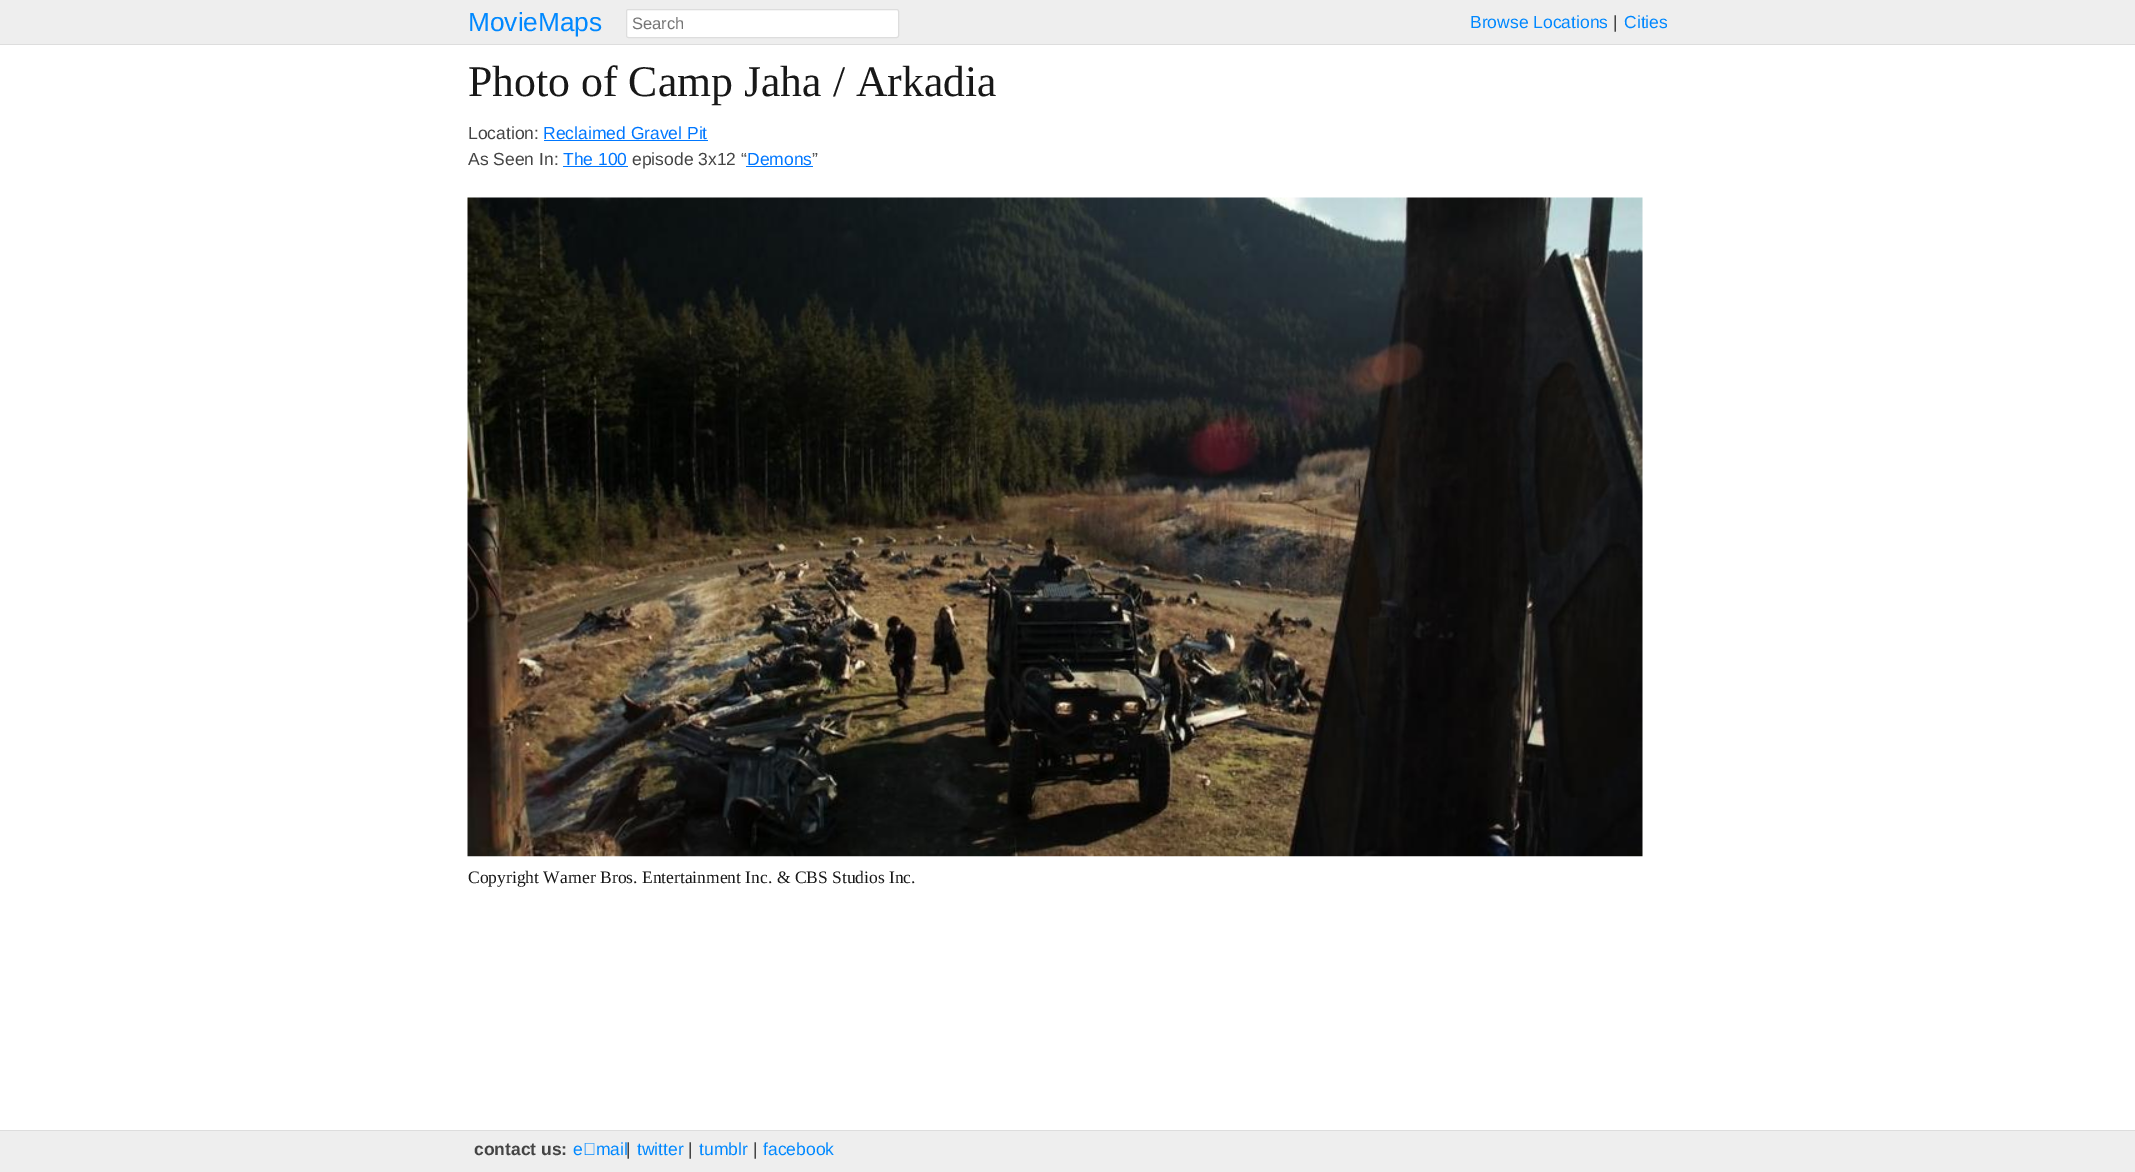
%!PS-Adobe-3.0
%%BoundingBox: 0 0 2135 1172
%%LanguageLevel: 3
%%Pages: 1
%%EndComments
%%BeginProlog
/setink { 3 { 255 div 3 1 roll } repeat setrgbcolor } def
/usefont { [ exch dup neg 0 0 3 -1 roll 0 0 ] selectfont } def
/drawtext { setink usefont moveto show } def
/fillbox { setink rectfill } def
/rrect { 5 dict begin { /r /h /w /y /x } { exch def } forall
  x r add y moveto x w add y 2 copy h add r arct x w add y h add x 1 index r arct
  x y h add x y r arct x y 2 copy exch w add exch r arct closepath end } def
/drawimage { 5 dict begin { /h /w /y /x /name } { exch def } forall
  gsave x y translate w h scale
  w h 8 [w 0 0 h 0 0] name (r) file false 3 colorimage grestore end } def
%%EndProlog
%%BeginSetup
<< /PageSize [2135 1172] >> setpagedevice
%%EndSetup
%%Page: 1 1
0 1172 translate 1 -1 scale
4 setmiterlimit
0 0 2135 1172 255 255 255 fillbox
0 0 2135 44 238 238 238 fillbox
0 44 2135 1 221 221 221 fillbox
(MovieMaps) 468 31 /LiberationSans-Regular 26.25 0 136 255 drawtext
255 255 255 setink
626.5 9.5 272 28 2 rrect gsave fill grestore
221 221 221 setink
stroke
(Search) 632 29 /LiberationSans-Regular 16.5 117 117 117 drawtext
(Browse Locations) 1470 28 /LiberationSans-Regular 17.5 0 136 255 drawtext
(|) 1613 28 /LiberationSans-Regular 17.5 68 68 68 drawtext
(Cities) 1624 28 /LiberationSans-Regular 17.5 0 136 255 drawtext
(Photo of Camp Jaha / Arkadia) 468 96 /LiberationSerif-Regular 43.75 24 24 24 drawtext
(Location:) 468 139 /LiberationSans-Regular 17.5 68 68 68 drawtext
(Reclaimed Gravel Pit) 543 139 /LiberationSans-Regular 17.5 0 119 255 drawtext
544 140 164 1 0 119 255 fillbox
(As Seen In:) 468 165 /LiberationSans-Regular 17.5 68 68 68 drawtext
(The 100) 563 165 /LiberationSans-Regular 17.5 0 119 255 drawtext
563 166 65 1 0 119 255 fillbox
(episode 3x12 “) 632 165 /LiberationSans-Regular 17.5 68 68 68 drawtext
(Demons) 747 165 /LiberationSans-Regular 17.5 0 119 255 drawtext
746 166 67 1 0 119 255 fillbox
(”) 812 165 /LiberationSans-Regular 17.5 68 68 68 drawtext
(assets/img1.rgb) 467 197 1176 660 drawimage
(Copyright Warner Bros. Entertainment Inc. & CBS Studios Inc.) 468 883 /LiberationSerif-Regular 17.5 24 24 24 drawtext
0 1131 2135 41 238 238 238 fillbox
0 1130 2135 1 221 221 221 fillbox
(contact us:) 474 1155 /LiberationSans-Bold 17.5 68 68 68 drawtext
(e‑mail) 573 1155 /LiberationSans-Regular 17.5 0 136 255 drawtext
(|) 626 1155 /LiberationSans-Regular 17.5 68 68 68 drawtext
(twitter) 637 1155 /LiberationSans-Regular 17.5 0 136 255 drawtext
(|) 688 1155 /LiberationSans-Regular 17.5 68 68 68 drawtext
(tumblr) 699 1155 /LiberationSans-Regular 17.5 0 136 255 drawtext
(|) 753 1155 /LiberationSans-Regular 17.5 68 68 68 drawtext
(facebook) 763 1155 /LiberationSans-Regular 17.5 0 136 255 drawtext
showpage
%%EOF
